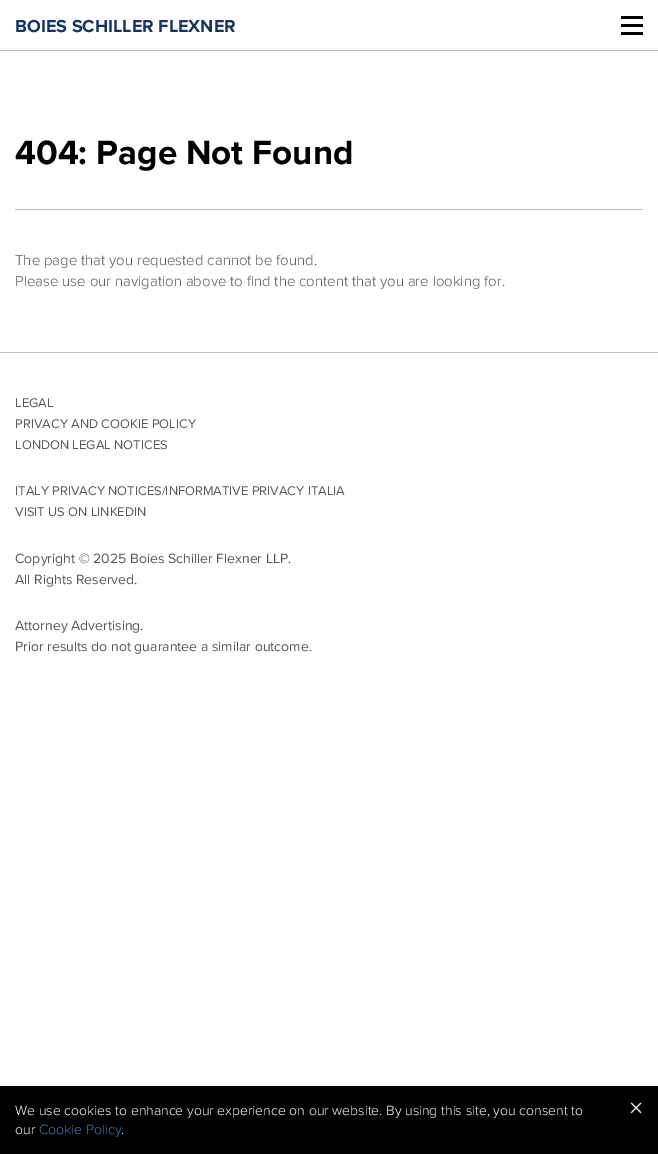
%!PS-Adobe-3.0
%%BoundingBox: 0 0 658 1154
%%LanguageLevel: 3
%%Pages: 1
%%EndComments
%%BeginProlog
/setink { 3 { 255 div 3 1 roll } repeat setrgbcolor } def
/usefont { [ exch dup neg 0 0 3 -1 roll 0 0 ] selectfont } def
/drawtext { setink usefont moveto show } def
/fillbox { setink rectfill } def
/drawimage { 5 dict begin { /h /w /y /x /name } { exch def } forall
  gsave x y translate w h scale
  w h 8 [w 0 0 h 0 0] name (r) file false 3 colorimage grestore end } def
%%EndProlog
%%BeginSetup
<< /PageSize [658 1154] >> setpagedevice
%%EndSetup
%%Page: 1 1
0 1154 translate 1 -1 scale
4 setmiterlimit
0 0 658 1154 255 255 255 fillbox
0 50 658 1 190 190 190 fillbox
(BOIES SCHILLER FLEXNER) 15 32 /ProximaNova-Bold 18 20 53 100 drawtext
621 16 22 3 0 0 0 fillbox
621 24 22 3 0 0 0 fillbox
621 32 22 3 0 0 0 fillbox
15 209 628 1 190 190 190 fillbox
(404: Page Not Found) 15 164 /ProximaNova-Bold 35 0 0 0 drawtext
(The page that you requested cannot be found.) 15 265 /ProximaNova-Light 15 88 88 91 drawtext
(Please use our navigation above to find the content that you are looking for.) 15 286 /ProximaNova-Light 15 88 88 91 drawtext
0 352 658 1 190 190 190 fillbox
(LEGAL) 15 407 /ProximaNova-Regular 13 88 88 91 drawtext
(PRIVACY AND COOKIE POLICY) 15 428 /ProximaNova-Regular 13 88 88 91 drawtext
(LONDON LEGAL NOTICES) 15 449 /ProximaNova-Regular 13 88 88 91 drawtext
(ITALY PRIVACY NOTICES/INFORMATIVE PRIVACY ITALIA) 15 495 /ProximaNova-Regular 13 88 88 91 drawtext
(VISIT US ON LINKEDIN) 15 516 /ProximaNova-Regular 13 88 88 91 drawtext
(Copyright © 2025 Boies Schiller Flexner LLP.) 15 563 /ProximaNova-Regular 14 88 88 91 drawtext
(All Rights Reserved.) 15 584 /ProximaNova-Regular 14 88 88 91 drawtext
(Attorney Advertising.) 15 630 /ProximaNova-Regular 14 88 88 91 drawtext
(Prior results do not guarantee a similar outcome.) 15 651 /ProximaNova-Regular 14 88 88 91 drawtext
0 1086 658 68 0 0 0 fillbox
(We use cookies to enhance your experience on our website. By using this site, you consent to) 15 1115 /ProximaNova-Light 14 255 255 255 drawtext
(our) 15 1134 /ProximaNova-Light 14 255 255 255 drawtext
(Cookie Policy) 39 1134 /ProximaNova-Light 14 59 131 206 drawtext
(.) 121 1134 /ProximaNova-Light 14 255 255 255 drawtext
(assets/img1.rgb) 630 1102 12 12 drawimage
showpage
%%EOF
